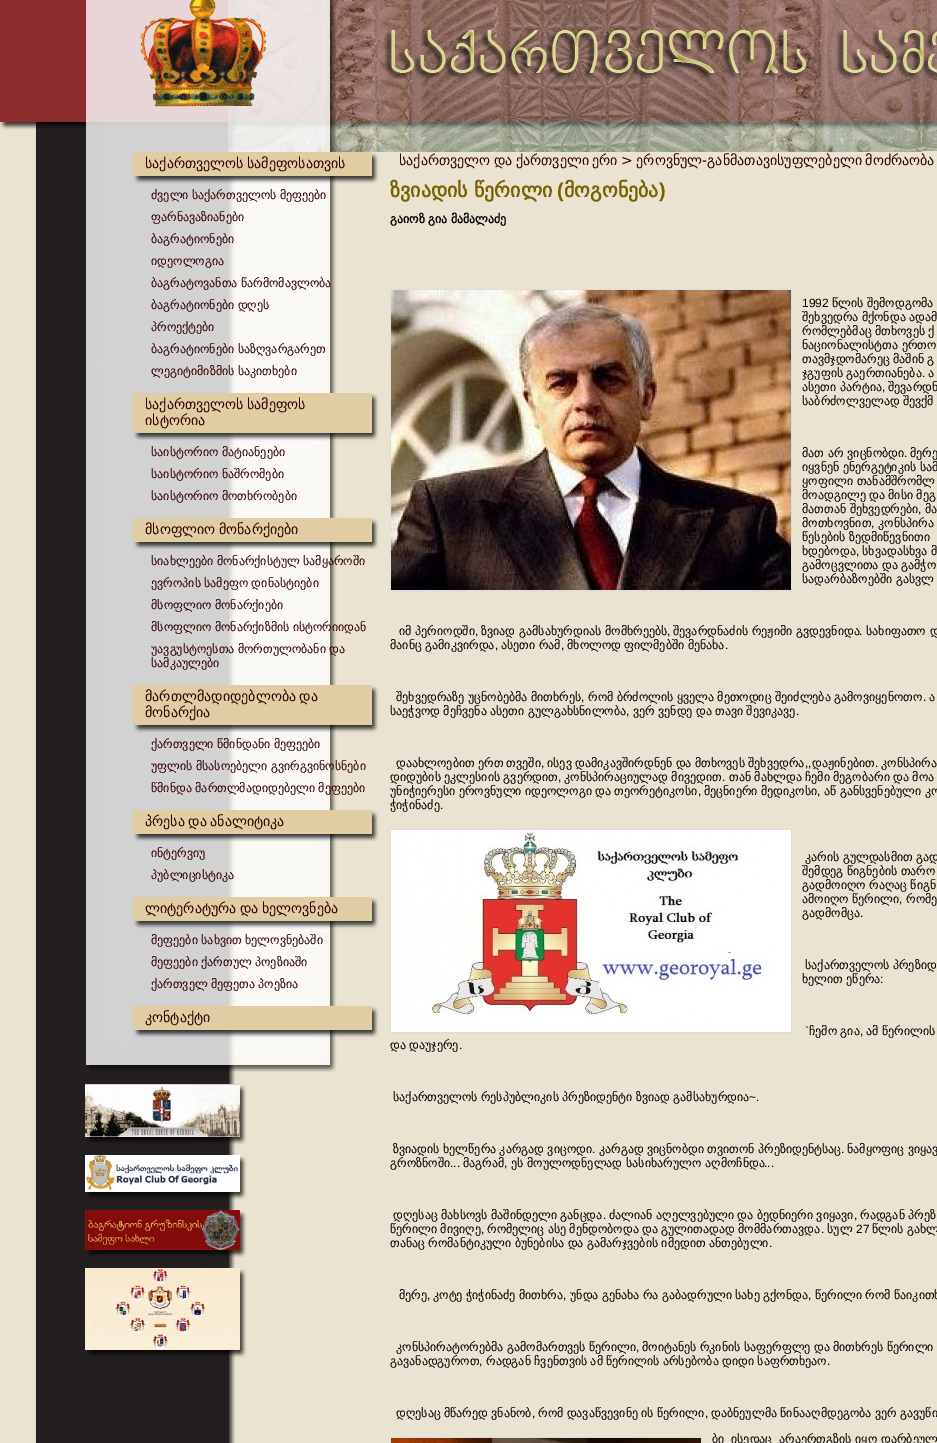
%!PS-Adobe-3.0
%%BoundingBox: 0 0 937 1443
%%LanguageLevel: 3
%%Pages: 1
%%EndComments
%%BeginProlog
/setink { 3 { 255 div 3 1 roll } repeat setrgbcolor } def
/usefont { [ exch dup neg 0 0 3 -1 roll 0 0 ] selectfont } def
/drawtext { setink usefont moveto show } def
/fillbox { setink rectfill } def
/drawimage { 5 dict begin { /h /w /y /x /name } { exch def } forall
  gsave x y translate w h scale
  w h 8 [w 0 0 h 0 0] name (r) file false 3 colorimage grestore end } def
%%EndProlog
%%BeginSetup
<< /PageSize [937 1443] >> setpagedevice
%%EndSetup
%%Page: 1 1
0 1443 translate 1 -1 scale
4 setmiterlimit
0 0 937 1443 255 255 255 fillbox
(assets/img1.rgb) 0 0 937 152 drawimage
(assets/img2.rgb) 86 0 251 152 drawimage
(assets/img3.rgb) 140 0 126 107 drawimage
(assets/img4.rgb) 0 152 937 1291 drawimage
(assets/img5.rgb) 86 152 251 921 drawimage
133 152 237 22 224 205 164 fillbox
/DejaVuSans-Regular 14 usefont
51 0 0 setink
145 168 moveto -1 0 32 (საქართველოს სამეფოსათვის) widthshow
(assets/img6.rgb) 370 152 9 22 drawimage
(assets/img7.rgb) 133 174 237 10 drawimage
(assets/img8.rgb) 370 174 9 10 drawimage
/DejaVuSans-Regular 12 usefont
151 199 moveto -0.5 0 32 (ძველი საქართველოს მეფეები) widthshow
(ფარნავაზიანები) 151 221 /DejaVuSans-Regular 12 51 0 0 drawtext
(ბაგრატიონები) 151 243 /DejaVuSans-Regular 12 51 0 0 drawtext
(იდეოლოგია) 151 265 /DejaVuSans-Regular 12 51 0 0 drawtext
151 287 moveto -0.5 0 32 (ბაგრატოვანთა წარმომავლობა) widthshow
151 309 moveto -0.5 0 32 (ბაგრატიონები დღეს) widthshow
(პროექტები) 151 331 /DejaVuSans-Regular 12 51 0 0 drawtext
151 353 moveto -0.5 0 32 (ბაგრატიონები საზღვარგარეთ) widthshow
151 375 moveto -0.5 0 32 (ლეგიტიმიზმის საკითხები) widthshow
133 393 237 38 224 205 164 fillbox
/DejaVuSans-Regular 14 usefont
51 0 0 setink
145 409 moveto -1 0 32 (საქართველოს სამეფოს) widthshow
(ისტორია) 145 425 /DejaVuSans-Regular 14 51 0 0 drawtext
(assets/img9.rgb) 370 393 9 38 drawimage
(assets/img10.rgb) 133 431 237 10 drawimage
(assets/img8.rgb) 370 431 9 10 drawimage
/DejaVuSans-Regular 12 usefont
151 456 moveto -0.5 0 32 (საისტორიო მატიანეები) widthshow
151 478 moveto -0.5 0 32 (საისტორიო ნაშრომები) widthshow
151 500 moveto -0.5 0 32 (საისტორიო მოთხრობები) widthshow
133 518 237 22 224 205 164 fillbox
/DejaVuSans-Regular 14 usefont
51 0 0 setink
145 534 moveto -1 0 32 (მსოფლიო მონარქიები) widthshow
(assets/img6.rgb) 370 518 9 22 drawimage
(assets/img11.rgb) 133 540 237 10 drawimage
(assets/img8.rgb) 370 540 9 10 drawimage
/DejaVuSans-Regular 12 usefont
151 565 moveto -0.5 0 32 (სიახლეები მონარქისტულ სამყაროში) widthshow
151 587 moveto -0.5 0 32 (ევროპის სამეფო დინასტიები) widthshow
151 609 moveto -0.5 0 32 (მსოფლიო მონარქიები) widthshow
151 631 moveto -0.5 0 32 (მსოფლიო მონარქიზმის ისტორიიდან) widthshow
151 653 moveto -0.5 0 32 (უავგუსტოესთა მორთულობანი და) widthshow
(სამკაულები) 151 667 /DejaVuSans-Regular 12 51 0 0 drawtext
133 685 237 38 224 205 164 fillbox
/DejaVuSans-Regular 14 usefont
51 0 0 setink
145 701 moveto -1 0 32 (მართლმადიდებლობა და) widthshow
(მონარქია) 145 717 /DejaVuSans-Regular 14 51 0 0 drawtext
(assets/img9.rgb) 370 685 9 38 drawimage
(assets/img12.rgb) 133 723 237 10 drawimage
(assets/img8.rgb) 370 723 9 10 drawimage
/DejaVuSans-Regular 12 usefont
151 748 moveto -0.5 0 32 (ქართველი წმინდანი მეფეები) widthshow
151 770 moveto -0.5 0 32 (უფლის მსასოებელი გვირგვინოსნები) widthshow
151 792 moveto -0.5 0 32 (წმინდა მართლმადიდებელი მეფეები) widthshow
133 810 237 22 224 205 164 fillbox
/DejaVuSans-Regular 14 usefont
51 0 0 setink
145 826 moveto -1 0 32 (პრესა და ანალიტიკა) widthshow
(assets/img6.rgb) 370 810 9 22 drawimage
(assets/img13.rgb) 133 832 237 10 drawimage
(assets/img8.rgb) 370 832 9 10 drawimage
(ინტერვიუ) 151 857 /DejaVuSans-Regular 12 51 0 0 drawtext
(პუბლიცისტიკა) 151 879 /DejaVuSans-Regular 12 51 0 0 drawtext
133 897 237 22 224 205 164 fillbox
/DejaVuSans-Regular 14 usefont
51 0 0 setink
145 913 moveto -1 0 32 (ლიტერატურა და ხელოვნება) widthshow
(assets/img6.rgb) 370 897 9 22 drawimage
(assets/img14.rgb) 133 919 237 10 drawimage
(assets/img8.rgb) 370 919 9 10 drawimage
/DejaVuSans-Regular 12 usefont
151 944 moveto -0.5 0 32 (მეფეები სახვით ხელოვნებაში) widthshow
151 966 moveto -0.5 0 32 (მეფეები ქართულ პოეზიაში) widthshow
151 988 moveto -0.5 0 32 (ქართველ მეფეთა პოეზია) widthshow
133 1006 237 22 224 205 164 fillbox
(კონტაქტი) 145 1022 /DejaVuSans-Regular 14 51 0 0 drawtext
(assets/img6.rgb) 370 1006 9 22 drawimage
(assets/img15.rgb) 133 1028 237 10 drawimage
(assets/img8.rgb) 370 1028 9 10 drawimage
(assets/img16.rgb) 85 1084 155 53 drawimage
(assets/img17.rgb) 240 1085 7 52 drawimage
(assets/img18.rgb) 87 1137 153 8 drawimage
(assets/img19.rgb) 240 1137 7 8 drawimage
(assets/img20.rgb) 85 1155 155 37 drawimage
(assets/img21.rgb) 240 1156 7 36 drawimage
(assets/img18.rgb) 87 1192 153 8 drawimage
(assets/img19.rgb) 240 1192 7 8 drawimage
(assets/img22.rgb) 85 1210 155 40 drawimage
(assets/img23.rgb) 240 1211 7 39 drawimage
(assets/img18.rgb) 87 1250 153 8 drawimage
(assets/img19.rgb) 240 1250 7 8 drawimage
(assets/img24.rgb) 85 1268 155 82 drawimage
(assets/img25.rgb) 240 1269 7 81 drawimage
(assets/img18.rgb) 87 1350 153 8 drawimage
(assets/img19.rgb) 240 1350 7 8 drawimage
399 165 moveto -1 0 32 (საქართველო და ქართველი ერი > ეროვნულ-განმათავისუფლებელი მოძრაობა) widthshow
/DejaVuSans-Bold 20 usefont
121 97 0 setink
390 197 moveto -0.5 0 32 (ზვიადის წერილი) widthshow
(\() 557 197 /LiberationSans-Bold 20 121 97 0 drawtext
(მოგონება) 564 197 /DejaVuSans-Bold 20 121 97 0 drawtext
(\)) 659 197 /LiberationSans-Bold 20 121 97 0 drawtext
/DejaVuSans-Bold 12 usefont
0 0 0 setink
390 223 moveto -0.5 0 32 (გაიოზ გია მამალაძე) widthshow
221 221 221 setink
390.5 289.5 401 301 rectstroke
(assets/img26.rgb) 391 290 400 300 drawimage
(1992) 802 307 /LiberationSans-Regular 12 0 0 0 drawtext
/DejaVuSans-Regular 12 usefont
832 307 moveto -0.5 0 32 (წლის შემოდგომა) widthshow
802 321 moveto -0.5 0 32 (შეხვედრა მქონდა ადამ) widthshow
802 335 moveto -0.5 0 32 (რომლებმაც მთხოვეს ქ) widthshow
(ნაციონალისტთა ერთო) 802 349 /DejaVuSans-Regular 12 0 0 0 drawtext
802 363 moveto -0.5 0 32 (თავმჯდომარეც მაშინ გ) widthshow
802 377 moveto -0.5 0 32 (ჯგუფის გაერთიანება) widthshow
(.) 922 377 /LiberationSans-Regular 12 0 0 0 drawtext
/DejaVuSans-Regular 12 usefont
928 377 moveto -0.5 0 32 (ა) widthshow
(ასეთი პარტია) 802 391 /DejaVuSans-Regular 12 0 0 0 drawtext
(,) 882 391 /LiberationSans-Regular 12 0 0 0 drawtext
(შევარდნ) 888 391 /DejaVuSans-Regular 12 0 0 0 drawtext
802 405 moveto -0.5 0 32 (საბრძოლველად შევქმ) widthshow
(მათ არ ვიცნობდი) 802 457 /DejaVuSans-Regular 12 0 0 0 drawtext
(.) 904 457 /LiberationSans-Regular 12 0 0 0 drawtext
(მერე) 910 457 /DejaVuSans-Regular 12 0 0 0 drawtext
802 471 moveto -0.5 0 32 (იყვნენ ენერგეტიკის სამ) widthshow
(ყოფილი თანამშრომლ) 802 485 /DejaVuSans-Regular 12 0 0 0 drawtext
802 499 moveto -0.5 0 32 (მოადგილე და მისი მეგ) widthshow
(მათთან შეხვედრები) 802 513 /DejaVuSans-Regular 12 0 0 0 drawtext
(,) 918 513 /LiberationSans-Regular 12 0 0 0 drawtext
(მა) 925 513 /DejaVuSans-Regular 12 0 0 0 drawtext
(მოთხოვნით) 802 527 /DejaVuSans-Regular 12 0 0 0 drawtext
(,) 871 527 /LiberationSans-Regular 12 0 0 0 drawtext
(კონსპირა) 878 527 /DejaVuSans-Regular 12 0 0 0 drawtext
802 541 moveto -0.5 0 32 (წესების ზედმიწევნითი) widthshow
(ხდებოდა) 802 555 /DejaVuSans-Regular 12 0 0 0 drawtext
(,) 856 555 /LiberationSans-Regular 12 0 0 0 drawtext
(სხვადასხვა მ) 862 555 /DejaVuSans-Regular 12 0 0 0 drawtext
802 569 moveto -0.5 0 32 (გამოცვლითა და გამჭო) widthshow
802 583 moveto -0.5 0 32 (სადარბაზოებში გასვლ) widthshow
(იმ პერიოდში) 399 635 /DejaVuSans-Regular 12 0 0 0 drawtext
(,) 475 635 /LiberationSans-Regular 12 0 0 0 drawtext
(ზვიად გამსახურდიას მომხრეებს) 481 635 /DejaVuSans-Regular 12 0 0 0 drawtext
(,) 667 635 /LiberationSans-Regular 12 0 0 0 drawtext
(შევარდნაძის რეჟიმი გვდევნიდა) 673 635 /DejaVuSans-Regular 12 0 0 0 drawtext
(.) 859 635 /LiberationSans-Regular 12 0 0 0 drawtext
(სახიფათო დ) 866 635 /DejaVuSans-Regular 12 0 0 0 drawtext
390 649 moveto -0.5 0 32 (მაინც გამიკვირდა) widthshow
(,) 495 649 /LiberationSans-Regular 12 0 0 0 drawtext
/DejaVuSans-Regular 12 usefont
501 649 moveto -0.5 0 32 (ასეთი რამ) widthshow
(,) 561 649 /LiberationSans-Regular 12 0 0 0 drawtext
/DejaVuSans-Regular 12 usefont
567 649 moveto -0.5 0 32 (მხოლოდ ფილმებში მენახა) widthshow
(.) 725 649 /LiberationSans-Regular 12 0 0 0 drawtext
/DejaVuSans-Regular 12 usefont
396 701 moveto -0.5 0 32 (შეხვედრაზე უცნობებმა მითხრეს) widthshow
(,) 581 701 /LiberationSans-Regular 12 0 0 0 drawtext
/DejaVuSans-Regular 12 usefont
588 701 moveto -0.5 0 32 (რომ ბრძოლის ყველა მეთოდიც შეიძლება გამოვიყენოთო) widthshow
(.) 923 701 /LiberationSans-Regular 12 0 0 0 drawtext
/DejaVuSans-Regular 12 usefont
929 701 moveto -0.5 0 32 (ა) widthshow
390 715 moveto -0.5 0 32 (საეჭვოდ მეჩვენა ასეთი გულგახსნილობა) widthshow
(,) 626 715 /LiberationSans-Regular 12 0 0 0 drawtext
/DejaVuSans-Regular 12 usefont
633 715 moveto -0.5 0 32 (ვერ ვენდე და თავი შევიკავე) widthshow
(.) 796 715 /LiberationSans-Regular 12 0 0 0 drawtext
/DejaVuSans-Regular 12 usefont
396 767 moveto -0.5 0 32 (დაახლოებით ერთ თვეში) widthshow
(,) 541 767 /LiberationSans-Regular 12 0 0 0 drawtext
/DejaVuSans-Regular 12 usefont
547 767 moveto -0.5 0 32 (ისევ დამიკავშირდნენ და მთხოვეს შეხვედრა) widthshow
(,,) 805 767 /LiberationSans-Regular 12 0 0 0 drawtext
(დაჟინებით) 812 767 /DejaVuSans-Regular 12 0 0 0 drawtext
(.) 875 767 /LiberationSans-Regular 12 0 0 0 drawtext
/DejaVuSans-Regular 12 usefont
881 767 moveto -0.5 0 32 (კონსპირა) widthshow
390 781 moveto -0.5 0 32 (დიდუბის ეკლესიის გვერდით) widthshow
(,) 558 781 /LiberationSans-Regular 12 0 0 0 drawtext
/DejaVuSans-Regular 12 usefont
564 781 moveto -0.5 0 32 (კონსპირაციულად მივედით) widthshow
(.) 722 781 /LiberationSans-Regular 12 0 0 0 drawtext
/DejaVuSans-Regular 12 usefont
729 781 moveto -0.5 0 32 (თან მახლდა ჩემი მეგობარი და მოა) widthshow
390 795 moveto -0.5 0 32 (უნიჭიერესი ეროვნული იდეოლოგი და თეორეტიკოსი) widthshow
(,) 698 795 /LiberationSans-Regular 12 0 0 0 drawtext
/DejaVuSans-Regular 12 usefont
704 795 moveto -0.5 0 32 (მეცნიერი მედიკოსი) widthshow
(,) 817 795 /LiberationSans-Regular 12 0 0 0 drawtext
/DejaVuSans-Regular 12 usefont
824 795 moveto -0.5 0 32 (აწ განსვენებული კო) widthshow
(ჭიჭინაძე) 390 809 /DejaVuSans-Regular 12 0 0 0 drawtext
(.) 440 809 /LiberationSans-Regular 12 0 0 0 drawtext
221 221 221 setink
390.5 829.5 401 203 rectstroke
(assets/img27.rgb) 391 830 400 202 drawimage
/DejaVuSans-Regular 12 usefont
0 0 0 setink
805 861 moveto -0.5 0 32 (კარის გულდასმით გად) widthshow
802 875 moveto -0.5 0 32 (შემდეგ წიგნების თარო) widthshow
802 889 moveto -0.5 0 32 (გადმოიღო რაღაც წიგნ) widthshow
802 903 moveto -0.5 0 32 (ამოიღო წერილი) widthshow
(,) 899 903 /LiberationSans-Regular 12 0 0 0 drawtext
/DejaVuSans-Regular 12 usefont
906 903 moveto -0.5 0 32 (რომე) widthshow
(გადმომცა) 802 917 /DejaVuSans-Regular 12 0 0 0 drawtext
(.) 860 917 /LiberationSans-Regular 12 0 0 0 drawtext
/DejaVuSans-Regular 12 usefont
805 969 moveto -0.5 0 32 (საქართველოს პრეზიდ) widthshow
802 983 moveto -0.5 0 32 (ხელით ეწერა) widthshow
(:) 880 983 /LiberationSans-Regular 12 0 0 0 drawtext
(`) 805 1035 /LiberationSans-Regular 12 0 0 0 drawtext
/DejaVuSans-Regular 12 usefont
809 1035 moveto -0.5 0 32 (ჩემო გია) widthshow
866 1035 moveto -0.5 0 32 (ამ წერილის) widthshow
(,) 860 1035 /LiberationSans-Regular 12 0 0 0 drawtext
/DejaVuSans-Regular 12 usefont
390 1049 moveto -0.5 0 32 (და დაუჯერე) widthshow
(.) 459 1049 /LiberationSans-Regular 12 0 0 0 drawtext
/DejaVuSans-Regular 12 usefont
393 1101 moveto -0.5 0 32 (საქართველოს რესპუბლიკის პრეზიდენტი ზვიად გამსახურდია) widthshow
(~.) 749 1101 /LiberationSans-Regular 12 0 0 0 drawtext
/DejaVuSans-Regular 12 usefont
393 1153 moveto -0.5 0 32 (ზვიადის ხელწერა კარგად ვიცოდი) widthshow
(.) 592 1153 /LiberationSans-Regular 12 0 0 0 drawtext
/DejaVuSans-Regular 12 usefont
599 1153 moveto -0.5 0 32 (კარგად ვიცნობდი თვითონ პრეზიდენტსაც) widthshow
(.) 841 1153 /LiberationSans-Regular 12 0 0 0 drawtext
/DejaVuSans-Regular 12 usefont
847 1153 moveto -0.5 0 32 (ნამყოფიც ვიყავ) widthshow
(გროზნოში) 390 1167 /DejaVuSans-Regular 12 0 0 0 drawtext
(...) 450 1167 /LiberationSans-Regular 12 0 0 0 drawtext
(მაგრამ) 463 1167 /DejaVuSans-Regular 12 0 0 0 drawtext
(,) 504 1167 /LiberationSans-Regular 12 0 0 0 drawtext
(ეს მოულოდნელად სასიხარულო აღმოჩნდა) 511 1167 /DejaVuSans-Regular 12 0 0 0 drawtext
(...) 764 1167 /LiberationSans-Regular 12 0 0 0 drawtext
/DejaVuSans-Regular 12 usefont
393 1219 moveto -0.5 0 32 (დღესაც მახსოვს მაშინდელი განცდა) widthshow
(.) 603 1219 /LiberationSans-Regular 12 0 0 0 drawtext
/DejaVuSans-Regular 12 usefont
609 1219 moveto -0.5 0 32 (ძალიან აღელვებული და ბედნიერი ვიყავი) widthshow
(,) 854 1219 /LiberationSans-Regular 12 0 0 0 drawtext
/DejaVuSans-Regular 12 usefont
860 1219 moveto -0.5 0 32 (რადგან პრეზ) widthshow
390 1233 moveto -0.5 0 32 (წერილი მივიღე) widthshow
(,) 481 1233 /LiberationSans-Regular 12 0 0 0 drawtext
/DejaVuSans-Regular 12 usefont
487 1233 moveto -0.5 0 32 (რომელიც ასე მენდობოდა და გულითადად მომმართავდა) widthshow
(.) 821 1233 /LiberationSans-Regular 12 0 0 0 drawtext
(სულ) 827 1233 /DejaVuSans-Regular 12 0 0 0 drawtext
(27) 856 1233 /LiberationSans-Regular 12 0 0 0 drawtext
/DejaVuSans-Regular 12 usefont
872 1233 moveto -0.5 0 32 (წლის გახლ) widthshow
390 1247 moveto -0.5 0 32 (თანაც რომანტიკული ბუნებისა და გამარჯვების იმედით ანთებული) widthshow
(.) 769 1247 /LiberationSans-Regular 12 0 0 0 drawtext
(მერე) 399 1299 /DejaVuSans-Regular 12 0 0 0 drawtext
(,) 427 1299 /LiberationSans-Regular 12 0 0 0 drawtext
/DejaVuSans-Regular 12 usefont
433 1299 moveto -0.5 0 32 (კოტე ჭიჭინაძე მითხრა) widthshow
(,) 563 1299 /LiberationSans-Regular 12 0 0 0 drawtext
/DejaVuSans-Regular 12 usefont
570 1299 moveto -0.5 0 32 (უნდა გენახა რა გაბადრული სახე გქონდა) widthshow
(,) 808 1299 /LiberationSans-Regular 12 0 0 0 drawtext
/DejaVuSans-Regular 12 usefont
815 1299 moveto -0.5 0 32 (წერილი რომ წაიკითხ) widthshow
396 1351 moveto -0.5 0 32 (კონსპირატორებმა გამომართვეს წერილი) widthshow
(,) 636 1351 /LiberationSans-Regular 12 0 0 0 drawtext
/DejaVuSans-Regular 12 usefont
642 1351 moveto -0.5 0 32 (მოიტანეს რკინის საფერფლე და მითხრეს წერილი) widthshow
(გავანადგუროთ) 390 1365 /DejaVuSans-Regular 12 0 0 0 drawtext
(,) 479 1365 /LiberationSans-Regular 12 0 0 0 drawtext
/DejaVuSans-Regular 12 usefont
486 1365 moveto -0.5 0 32 (რადგან ჩვენთვის ამ წერილის არსებობა დიდი საფრთხეაო) widthshow
(.) 827 1365 /LiberationSans-Regular 12 0 0 0 drawtext
/DejaVuSans-Regular 12 usefont
396 1417 moveto -0.5 0 32 (დღესაც მწარედ ვნანობ) widthshow
(,) 532 1417 /LiberationSans-Regular 12 0 0 0 drawtext
/DejaVuSans-Regular 12 usefont
538 1417 moveto -0.5 0 32 (რომ დავაწვევინე ის წერილი) widthshow
(,) 705 1417 /LiberationSans-Regular 12 0 0 0 drawtext
/DejaVuSans-Regular 12 usefont
711 1417 moveto -0.5 0 32 (დაბნეულმა წინააღმდეგობა ვერ გავუწი) widthshow
221 221 221 setink
390.5 1437.5 311 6 rectstroke
(assets/img28.rgb) 391 1438 310 5 drawimage
(ბი) 712 1443 /DejaVuSans-Regular 12 0 0 0 drawtext
(ისედაც) 731 1443 /DejaVuSans-Regular 12 0 0 0 drawtext
(არაერთგზის იყო დარბეულ) 779 1443 /DejaVuSans-Regular 12 0 0 0 drawtext
showpage
%%EOF
